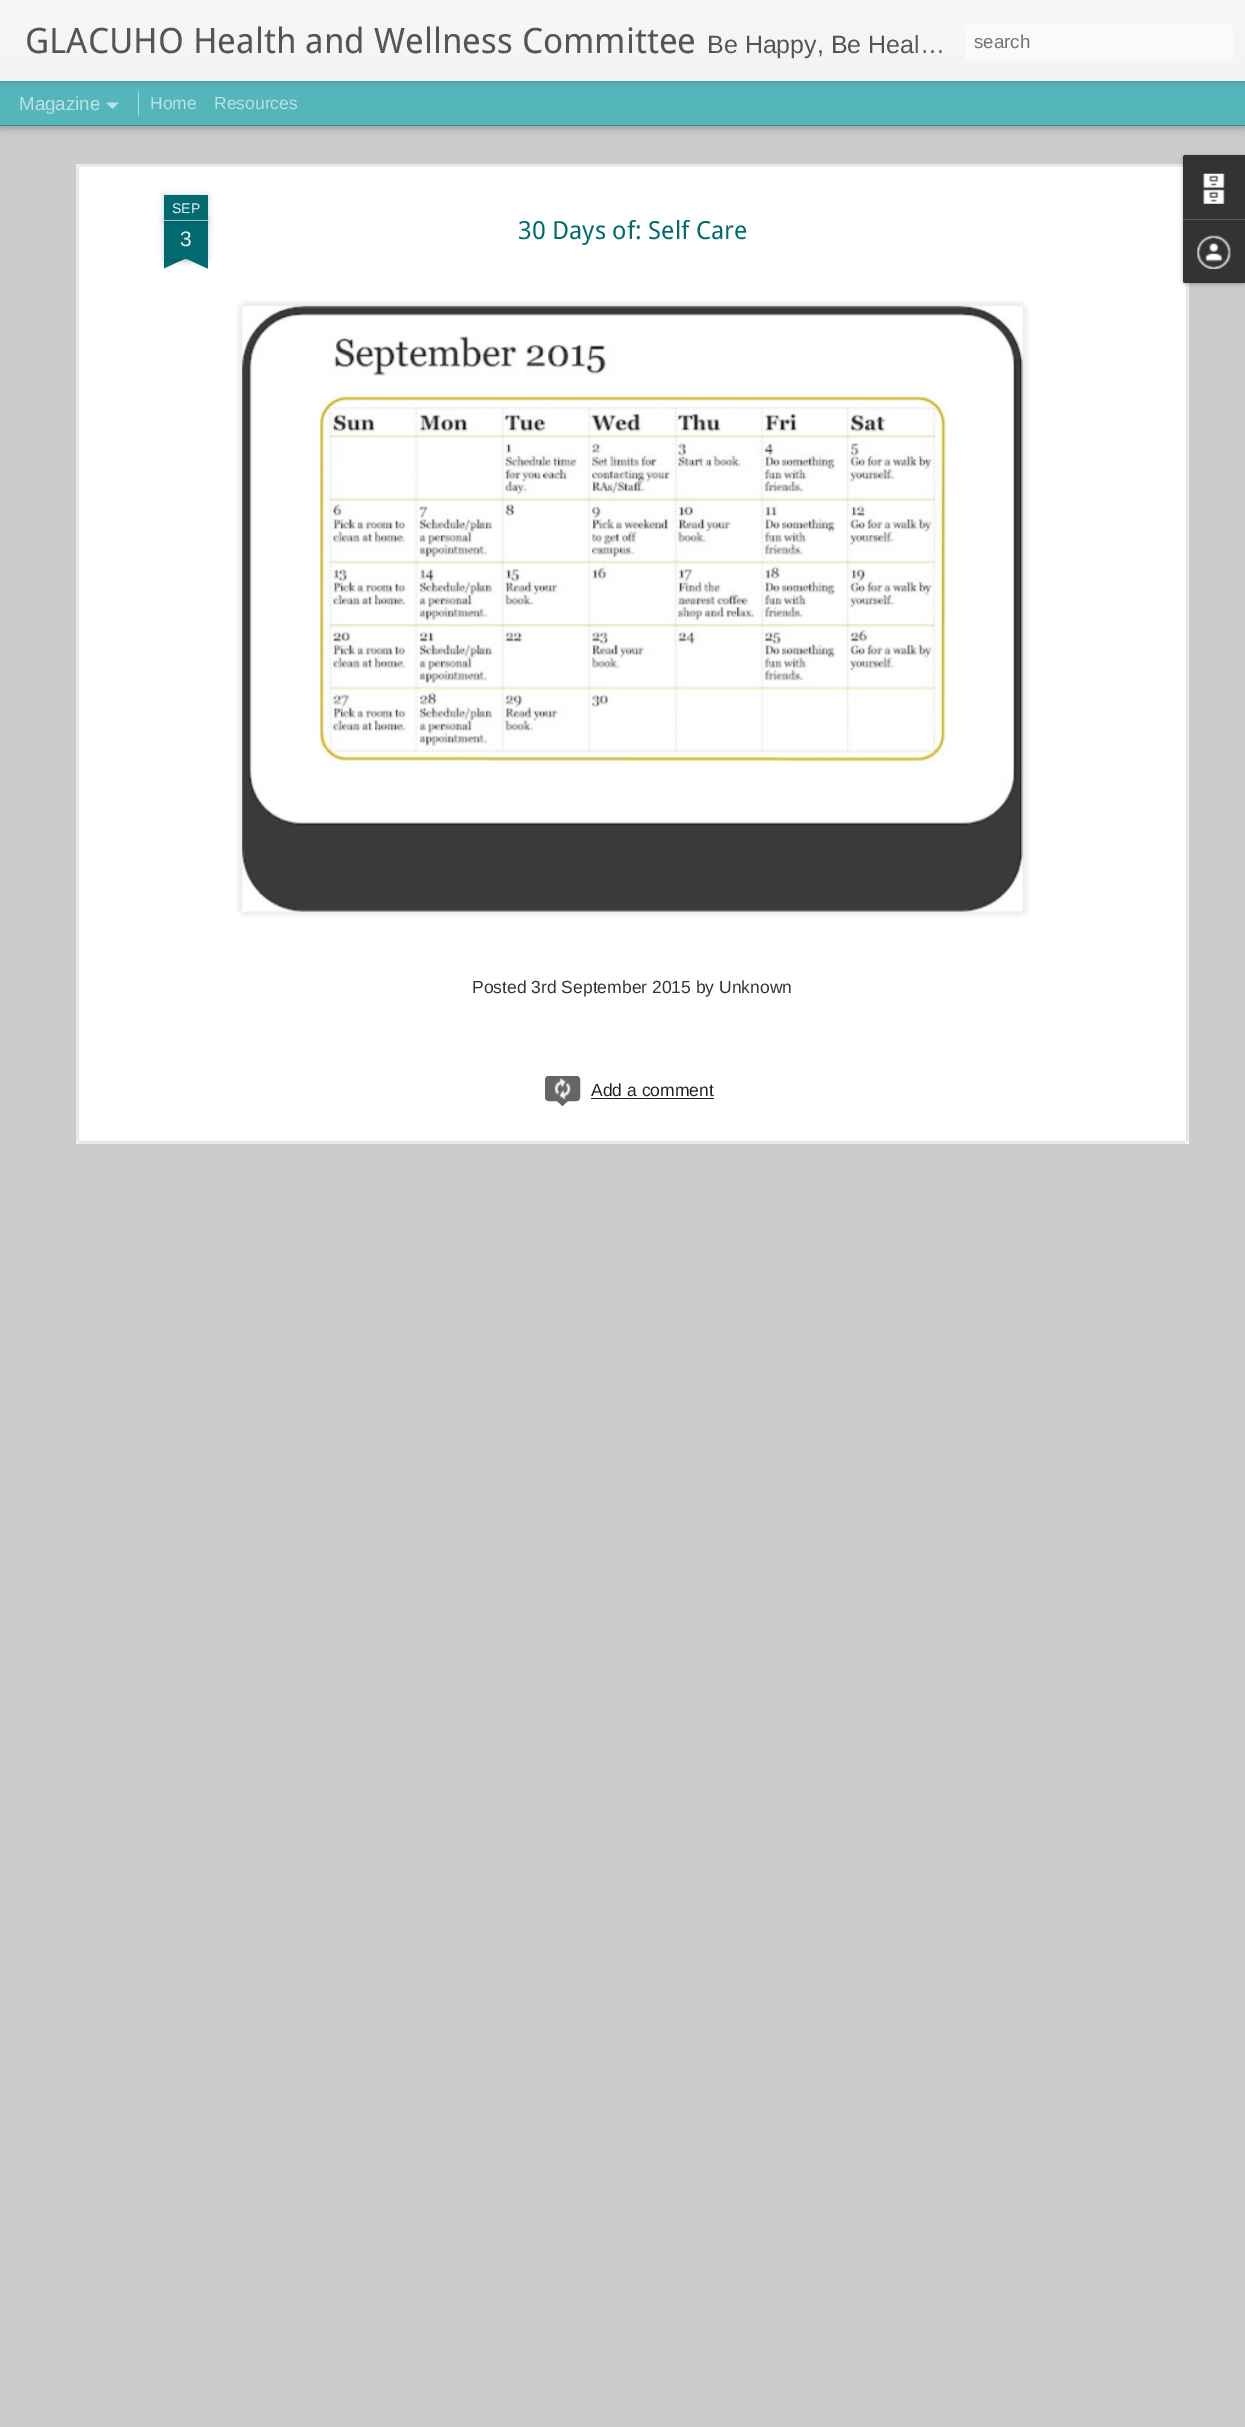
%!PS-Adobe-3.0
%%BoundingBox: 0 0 1245 2427
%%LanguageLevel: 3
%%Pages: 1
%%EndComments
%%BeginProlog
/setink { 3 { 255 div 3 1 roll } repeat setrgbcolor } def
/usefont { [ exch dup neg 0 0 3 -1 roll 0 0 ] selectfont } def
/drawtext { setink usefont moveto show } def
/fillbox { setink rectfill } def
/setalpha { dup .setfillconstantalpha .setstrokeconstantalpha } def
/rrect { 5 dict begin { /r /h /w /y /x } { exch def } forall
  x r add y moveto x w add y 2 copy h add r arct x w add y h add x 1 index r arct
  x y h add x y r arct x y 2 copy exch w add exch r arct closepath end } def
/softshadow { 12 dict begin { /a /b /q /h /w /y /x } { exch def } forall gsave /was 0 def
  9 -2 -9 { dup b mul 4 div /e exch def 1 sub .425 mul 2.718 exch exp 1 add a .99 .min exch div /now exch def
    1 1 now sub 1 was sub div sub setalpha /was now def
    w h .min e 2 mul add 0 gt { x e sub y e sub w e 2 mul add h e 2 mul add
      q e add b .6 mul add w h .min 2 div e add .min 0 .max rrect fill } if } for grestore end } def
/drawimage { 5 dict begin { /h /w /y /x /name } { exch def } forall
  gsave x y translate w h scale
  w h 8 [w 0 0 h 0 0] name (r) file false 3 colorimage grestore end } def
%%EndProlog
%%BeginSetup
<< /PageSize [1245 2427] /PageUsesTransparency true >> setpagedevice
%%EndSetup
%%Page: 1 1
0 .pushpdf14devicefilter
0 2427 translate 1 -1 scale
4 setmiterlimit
0 0 1245 2427 84 181 186 fillbox
0 126 1245 2301 204 204 204 fillbox
0 0 0 setink
0 81 1245 44 0 5 0.5 softshadow
0 81 1245 44 84 181 186 fillbox
0 0 0 setink
0 0 1245 81 0 3 0.3 softshadow
gsave 0 0 moveto 1245 0 lineto 1245 81 lineto 0 81 lineto closepath clip newpath
<< /ShadingType 2 /ColorSpace /DeviceRGB /Coords [0 0 0 81] /Extend [true true] /Function << /FunctionType 2 /Domain [0 1] /C0 [0.969 0.969 0.969] /C1 [0.957 0.957 0.957] /N 1 >> >> shfill grestore
(GLACUHO Health and Wellness Committee) 25 53 /DroidSans-Regular 35 85 85 85 drawtext
(Be Happy, Be Heal…) 707 53 /LiberationSans-Regular 25 85 85 85 drawtext
250 250 250 setink
965 23 268 37 4 rrect fill
(search) 974 48 /LiberationSans-Regular 18.75 117 117 117 drawtext
(Magazine) 19 110 /LiberationSans-Regular 18.75 187 225 227 drawtext
106 102.5 moveto 119 102.5 lineto 112.5 109 lineto closepath fill
138 91 1 25 170 218 221 fillbox
(Home) 150 109 /LiberationSans-Regular 17.5 187 225 227 drawtext
(Resources) 214 109 /LiberationSans-Regular 17.5 187 225 227 drawtext
76 164 1113 980 255 255 255 fillbox
(assets/img1.rgb) 76 164 1113 980 drawimage
0 0 0 setink
164 221 44 38 0 3 0.2 softshadow
164 221 44 38 2 107 113 fillbox
0 0 0 setink
164 195 44 26 1 3 0.2 softshadow
2 107 113 setink
165 195 moveto 207 195 lineto 207.5 195 208 195.5 208 196 curveto 208 221 lineto 164 221 lineto 164 196 lineto 164 195.5 164.5 195 165 195 curveto closepath fill
164 220 44 1 154 196 198 fillbox
(SEP) 172 213 /LiberationSans-Regular 14 238 238 238 drawtext
(3) 180 246 /LiberationSans-Regular 21 238 238 238 drawtext
gsave
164 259 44 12 rectclip
0 0 0 setink
153 246 62 13 0 3 0.2 softshadow
grestore
gsave
164 259 44 12 rectclip
2 107 113 setink
153 260 moveto 209 234 lineto 215 245 lineto 158 271 lineto closepath fill
grestore
gsave
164 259 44 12 rectclip
0 0 0 setink
156 246 63 13 0 3 0.2 softshadow
grestore
gsave
164 259 44 12 rectclip
2 107 113 setink
162 234 moveto 218 260 lineto 213 271 lineto 157 245 lineto closepath fill
grestore
(30 Days of: Self Care) 518 239 /DroidSans-Regular 25 2 107 113 drawtext
(assets/img2.rgb) 236 300 793 617 drawimage
(assets/img3.rgb) 242 305 782 607 drawimage
(Posted 3rd September 2015 by Unknown) 472 993 /LiberationSans-Regular 17.5 51 51 51 drawtext
102 102 102 setink
545 1076 35 25 4 rrect fill
(assets/img4.rgb) 554 1078 17 22 drawimage
545.5 1076.5 34 24 3.5 rrect stroke
556 1100 moveto 569 1100 lineto 562.5 1106 lineto closepath fill
(Add a comment) 591 1096 /LiberationSans-Regular 17.5 34 34 34 drawtext
591 1098 123 1 34 34 34 fillbox
0 0 0 setink
1183 156 62 128 2.5 2 0.3 softshadow
51 51 51 setink
1185.5 155 moveto 1245 155 lineto 1245 219 lineto 1183 219 lineto 1183 157.5 lineto 1183 156 1184 155 1185.5 155 curveto closepath fill
(assets/img5.rgb) 1203 173 22 31 drawimage
1183 219 moveto 1245 219 lineto 1245 283 lineto 1185.5 283 lineto 1184 283 1183 282 1183 280.5 curveto closepath fill
1183 219 62 1 88 88 88 fillbox
(assets/img6.rgb) 1197 235 34 34 drawimage
.poppdf14devicefilter showpage
%%EOF
